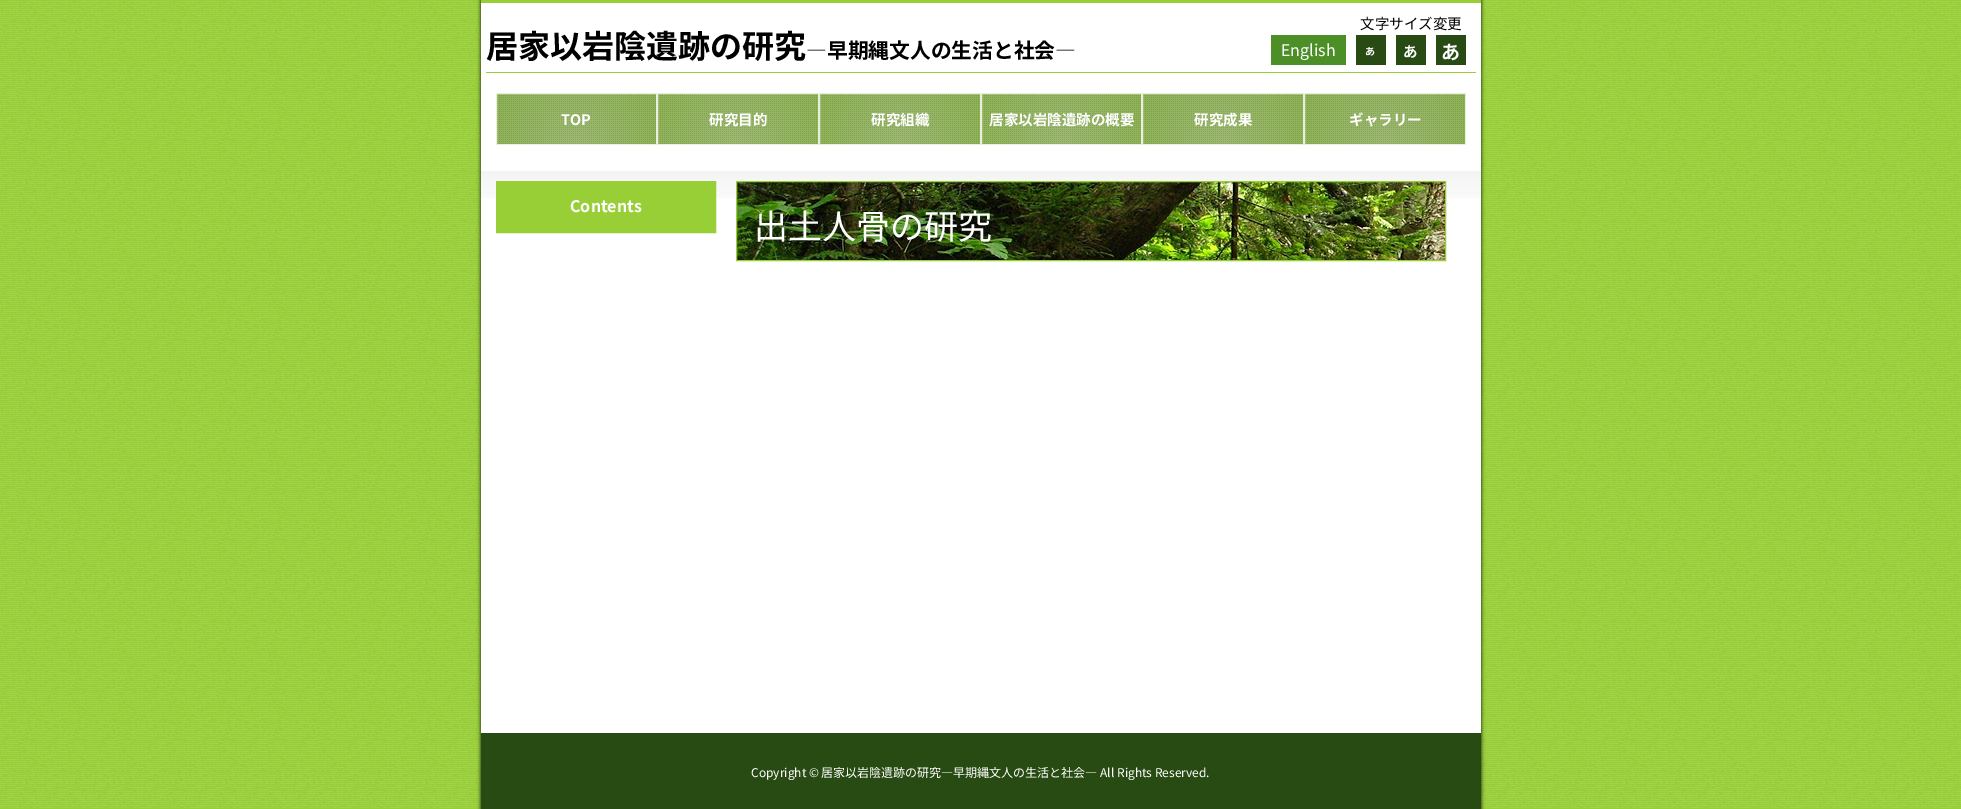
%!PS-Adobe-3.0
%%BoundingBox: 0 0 1961 809
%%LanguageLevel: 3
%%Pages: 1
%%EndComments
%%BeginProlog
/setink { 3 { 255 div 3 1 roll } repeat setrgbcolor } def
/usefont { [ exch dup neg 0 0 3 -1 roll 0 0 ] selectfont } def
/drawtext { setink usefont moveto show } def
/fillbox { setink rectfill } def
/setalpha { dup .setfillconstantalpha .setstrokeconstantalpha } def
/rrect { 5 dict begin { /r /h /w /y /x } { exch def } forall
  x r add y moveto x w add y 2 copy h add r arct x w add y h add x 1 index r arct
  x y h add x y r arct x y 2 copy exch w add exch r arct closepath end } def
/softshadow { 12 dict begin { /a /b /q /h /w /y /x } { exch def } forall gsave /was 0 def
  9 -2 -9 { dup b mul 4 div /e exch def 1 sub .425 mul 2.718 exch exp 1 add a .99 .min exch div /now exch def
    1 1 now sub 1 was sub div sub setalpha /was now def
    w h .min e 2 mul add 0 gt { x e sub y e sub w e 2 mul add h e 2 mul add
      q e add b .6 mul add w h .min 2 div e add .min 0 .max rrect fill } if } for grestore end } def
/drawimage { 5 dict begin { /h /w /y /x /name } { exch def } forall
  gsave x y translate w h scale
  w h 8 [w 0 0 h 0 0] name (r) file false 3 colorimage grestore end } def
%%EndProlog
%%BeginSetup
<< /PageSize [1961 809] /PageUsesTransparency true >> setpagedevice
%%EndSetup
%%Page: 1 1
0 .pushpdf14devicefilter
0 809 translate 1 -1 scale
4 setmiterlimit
0 0 1961 809 152 207 55 fillbox
(assets/img1.rgb) 0 1 1961 807 drawimage
0 0 0 setink
481 0 1000 809 0 2 1 softshadow
481 198 1000 535 255 255 255 fillbox
481 3 1000 168 255 255 255 fillbox
481 0 1000 3 152 207 55 fillbox
486 72 990 1 152 207 55 fillbox
(居家以岩陰遺跡の研究) 486 58 /NotoSansJP-Bold 32 0 0 0 drawtext
(―早期縄文人の生活と社会―) 806 58 /NotoSansJP-Bold 20.75 0 0 0 drawtext
1271 35 75 30 77 143 39 fillbox
(English) 1281 56 /NotoSansJP-Regular 16 255 255 255 drawtext
(文字サイズ変更) 1360 29 /NotoSansJP-Regular 14.5 0 0 0 drawtext
1356 35 30 30 39 75 18 fillbox
(あ) 1365 55 /NotoSansJP-Bold 10 255 255 255 drawtext
1396 35 30 30 39 75 18 fillbox
(あ) 1403 57 /NotoSansJP-Bold 14.5 255 255 255 drawtext
1436 35 30 30 39 75 18 fillbox
(あ) 1441 59 /NotoSansJP-Bold 19 255 255 255 drawtext
(assets/img2.rgb) 496 93 161 52 drawimage
0.8 setalpha
496.5 93.5 160 51 rectstroke
1 setalpha
(TOP) 561 125 /NotoSansJP-Bold 14.5 255 255 255 drawtext
(assets/img3.rgb) 657 93 162 52 drawimage
0.8 setalpha
657.5 93.5 161 51 rectstroke
1 setalpha
(研究目的) 709 125 /NotoSansJP-Bold 14.5 255 255 255 drawtext
(assets/img3.rgb) 819 93 162 52 drawimage
0.8 setalpha
819.5 93.5 161 51 rectstroke
1 setalpha
(研究組織) 871 125 /NotoSansJP-Bold 14.5 255 255 255 drawtext
(assets/img2.rgb) 981 93 161 52 drawimage
0.8 setalpha
981.5 93.5 160 51 rectstroke
1 setalpha
(居家以岩陰遺跡の概要) 989 125 /NotoSansJP-Bold 14.5 255 255 255 drawtext
(assets/img3.rgb) 1142 93 162 52 drawimage
0.8 setalpha
1142.5 93.5 161 51 rectstroke
1 setalpha
(研究成果) 1194 125 /NotoSansJP-Bold 14.5 255 255 255 drawtext
(assets/img3.rgb) 1304 93 162 52 drawimage
0.8 setalpha
1304.5 93.5 161 51 rectstroke
1 setalpha
(ギャラリー) 1349 125 /NotoSansJP-Bold 14.5 255 255 255 drawtext
(assets/img4.rgb) 481 171 1000 27 drawimage
152 207 55 setink
496.5 181.5 219 51 rectstroke
497 182 218 50 152 207 55 fillbox
(Contents) 570 212 /NotoSansJP-Bold 16 255 255 255 drawtext
(assets/img5.rgb) 737 182 708 78 drawimage
152 207 55 setink
736.5 181.5 709 79 rectstroke
(出土人骨の研究) 754 239 /NotoSansJP-Regular 34 255 255 255 drawtext
481 733 1000 76 39 75 18 fillbox
(Copyright © 居家以岩陰遺跡の研究―早期縄文人の生活と社会― All Rights Reserved.) 751 777 /NotoSansJP-Regular 12 255 255 255 drawtext
.poppdf14devicefilter showpage
%%EOF
